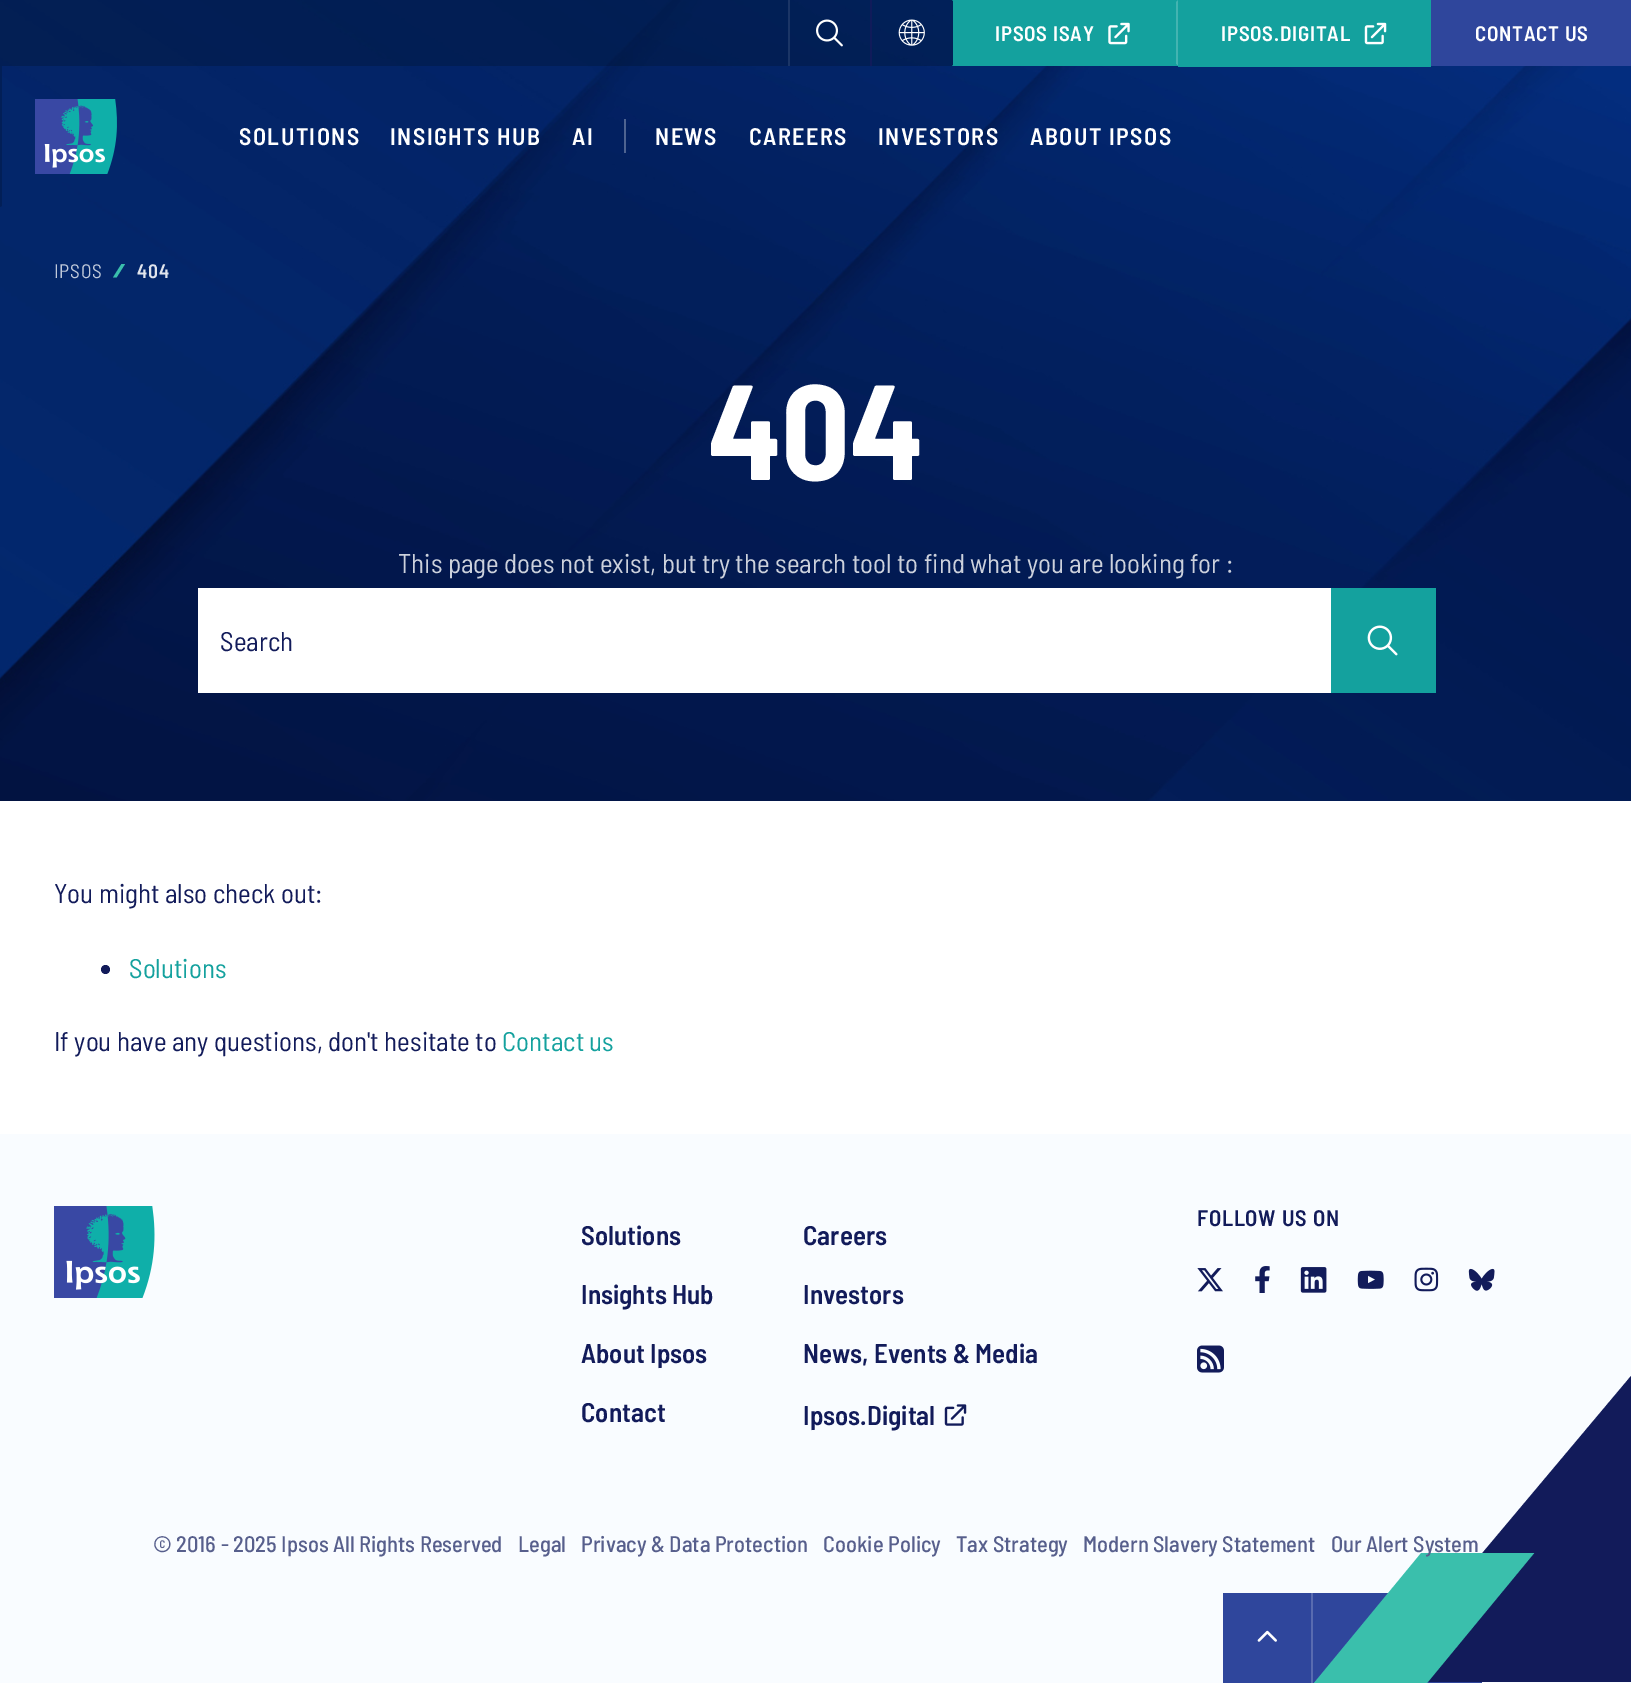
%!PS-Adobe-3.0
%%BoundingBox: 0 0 1631 1694
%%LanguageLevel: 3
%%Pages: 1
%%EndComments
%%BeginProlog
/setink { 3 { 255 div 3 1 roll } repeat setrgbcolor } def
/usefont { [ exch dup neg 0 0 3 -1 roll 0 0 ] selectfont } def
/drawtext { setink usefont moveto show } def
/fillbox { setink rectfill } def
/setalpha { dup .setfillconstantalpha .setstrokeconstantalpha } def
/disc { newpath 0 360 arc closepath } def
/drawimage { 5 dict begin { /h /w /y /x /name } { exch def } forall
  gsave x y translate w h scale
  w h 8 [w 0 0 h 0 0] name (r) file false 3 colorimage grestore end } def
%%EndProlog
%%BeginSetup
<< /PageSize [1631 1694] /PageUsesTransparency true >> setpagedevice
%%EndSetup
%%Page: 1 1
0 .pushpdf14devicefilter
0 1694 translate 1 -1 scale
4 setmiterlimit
0 0 1631 1694 255 255 255 fillbox
(assets/img6.rgb) 0 0 1631 801 drawimage
0.3 setalpha
0 0 953 66 0 17 39 fillbox
1 setalpha
788 0 2 66 27 53 102 fillbox
(assets/img1.rgb) 816 19 27 28 drawimage
0.9 setalpha
870 0 2 66 18 27 90 fillbox
1 setalpha
(assets/img2.rgb) 898 19 27 27 drawimage
953 0 225 66 20 161 158 fillbox
952 0 moveto 1178 0 lineto 1176 2 lineto 954 2 lineto closepath fill
67 180 177 setink
1178 0 moveto 1178 66 lineto 1176 64 lineto 1176 2 lineto closepath fill
20 161 158 setink
1178 66 moveto 952 66 lineto 954 64 lineto 1176 64 lineto closepath fill
/BarlowSemiCondensed-SemiBold 21 usefont
255 255 255 setink
995 41 moveto 0.75 0 (IPSOS ISAY) ashow
(assets/img3.rgb) 1108 22 22 23 drawimage
1178 0 253 67 20 161 158 fillbox
255 255 255 setink
1221 41 moveto 0.75 0 (IPSOS.DIGITAL) ashow
(assets/img4.rgb) 1364 22 23 23 drawimage
1431 0 200 66 47 70 156 fillbox
255 255 255 setink
1475 41 moveto 0.75 0 (CONTACT US) ashow
(assets/img5.rgb) 35 99 82 75 drawimage
2 31 87 setink
0 207 moveto 0 66 lineto 2 66 lineto 2 206 lineto closepath fill
/BarlowSemiCondensed-SemiBold 24 usefont
255 255 255 setink
239 145 moveto 1.5 0 (SOLUTIONS) ashow
390 145 moveto 1.5 0 (INSIGHTS HUB) ashow
572 145 moveto 1.5 0 (AI) ashow
624 119 2 34 78 99 144 fillbox
255 255 255 setink
655 145 moveto 1.5 0 (NEWS) ashow
749 145 moveto 1.5 0 (CAREERS) ashow
878 145 moveto 1.5 0 (INVESTORS) ashow
1030 145 moveto 1.5 0 (ABOUT IPSOS) ashow
/BarlowSemiCondensed-Regular 19.5 usefont
192 201 218 setink
54 278 moveto 0.75 0 (IPSOS) ashow
58 191 172 setink
121.5 264 moveto 113 277.5 lineto 116.5 277.5 lineto 125 264 lineto closepath fill
/BarlowSemiCondensed-SemiBold 19.5 usefont
225 229 237 setink
137 278 moveto 0.75 0 (404) ashow
(404) 708 480 /BarlowSemiCondensed-Bold 135 255 255 255 drawtext
(This page does not exist, but try the search tool to find what you are looking for :) 398 573 /BarlowSemiCondensed-Regular 27 204 209 220 drawtext
198 588 1133 105 255 255 255 fillbox
(Search) 220 651 /BarlowSemiCondensed-Regular 27 18 27 90 drawtext
1331 588 105 105 20 161 158 fillbox
(assets/img7.rgb) 1367 625 31 31 drawimage
(You might also check out:) 54 903 /BarlowSemiCondensed-Regular 27 18 27 90 drawtext
105.5 969.5 4.5 disc fill
(Solutions) 129 978 /BarlowSemiCondensed-Regular 27 20 161 158 drawtext
(If you have any questions, don't hesitate to) 54 1051 /BarlowSemiCondensed-Regular 27 18 27 90 drawtext
(Contact us) 502 1051 /BarlowSemiCondensed-Regular 27 20 161 158 drawtext
0 1134 1631 549 249 252 255 fillbox
(assets/img8.rgb) 54 1206 101 92 drawimage
/BarlowSemiCondensed-SemiBold 22.5 usefont
18 27 90 setink
1197 1226 moveto 0.75 0 (FOLLOW US ON) ashow
(assets/img9.rgb) 1197 1268 26 24 drawimage
(assets/img10.rgb) 1255 1266 15 27 drawimage
(assets/img11.rgb) 1300 1267 27 26 drawimage
(assets/img12.rgb) 1357 1270 27 19 drawimage
(assets/img13.rgb) 1414 1267 25 25 drawimage
(assets/img14.rgb) 1468 1268 27 23 drawimage
(assets/img15.rgb) 1197 1345 27 28 drawimage
(Solutions) 581 1245 /BarlowSemiCondensed-SemiBold 27 18 27 90 drawtext
(Insights Hub) 581 1304 /BarlowSemiCondensed-SemiBold 27 18 27 90 drawtext
(About Ipsos) 581 1363 /BarlowSemiCondensed-SemiBold 27 18 27 90 drawtext
(Contact) 581 1422 /BarlowSemiCondensed-SemiBold 27 18 27 90 drawtext
(Careers) 803 1245 /BarlowSemiCondensed-SemiBold 27 18 27 90 drawtext
(Investors) 803 1304 /BarlowSemiCondensed-SemiBold 27 18 27 90 drawtext
(News, Events & Media) 803 1363 /BarlowSemiCondensed-SemiBold 27 18 27 90 drawtext
(Ipsos.Digital) 803 1425 /BarlowSemiCondensed-SemiBold 27 18 27 90 drawtext
(assets/img16.rgb) 944 1404 23 22 drawimage
(© 2016 - 2025 Ipsos All Rights Reserved) 153 1552 /BarlowSemiCondensed-Medium 22.5 87 95 140 drawtext
(Legal) 518 1552 /BarlowSemiCondensed-Medium 22.5 87 95 140 drawtext
(Privacy & Data Protection) 581 1552 /BarlowSemiCondensed-Medium 22.5 87 95 140 drawtext
(Cookie Policy) 823 1552 /BarlowSemiCondensed-Medium 22.5 87 95 140 drawtext
(Tax Strategy) 956 1552 /BarlowSemiCondensed-Medium 22.5 87 95 140 drawtext
1223 1593 259 90 47 70 156 fillbox
18 27 90 setink
1374 1682 moveto 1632 1682 lineto 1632 1376 lineto 1631 1376 lineto closepath fill
gsave
1314 1553 221 130 rectclip
58 191 172 setink
1422 1552 moveto 1535 1552 lineto 1427 1683 lineto 1314 1683 lineto closepath fill
grestore
(Modern Slavery Statement) 1083 1552 /BarlowSemiCondensed-Medium 22.5 87 95 140 drawtext
(Our Alert System) 1331 1552 /BarlowSemiCondensed-Medium 22.5 87 95 140 drawtext
1311 1593 2 90 89 107 176 fillbox
(assets/img17.rgb) 1257 1630 20 12 drawimage
.poppdf14devicefilter showpage
%%EOF
